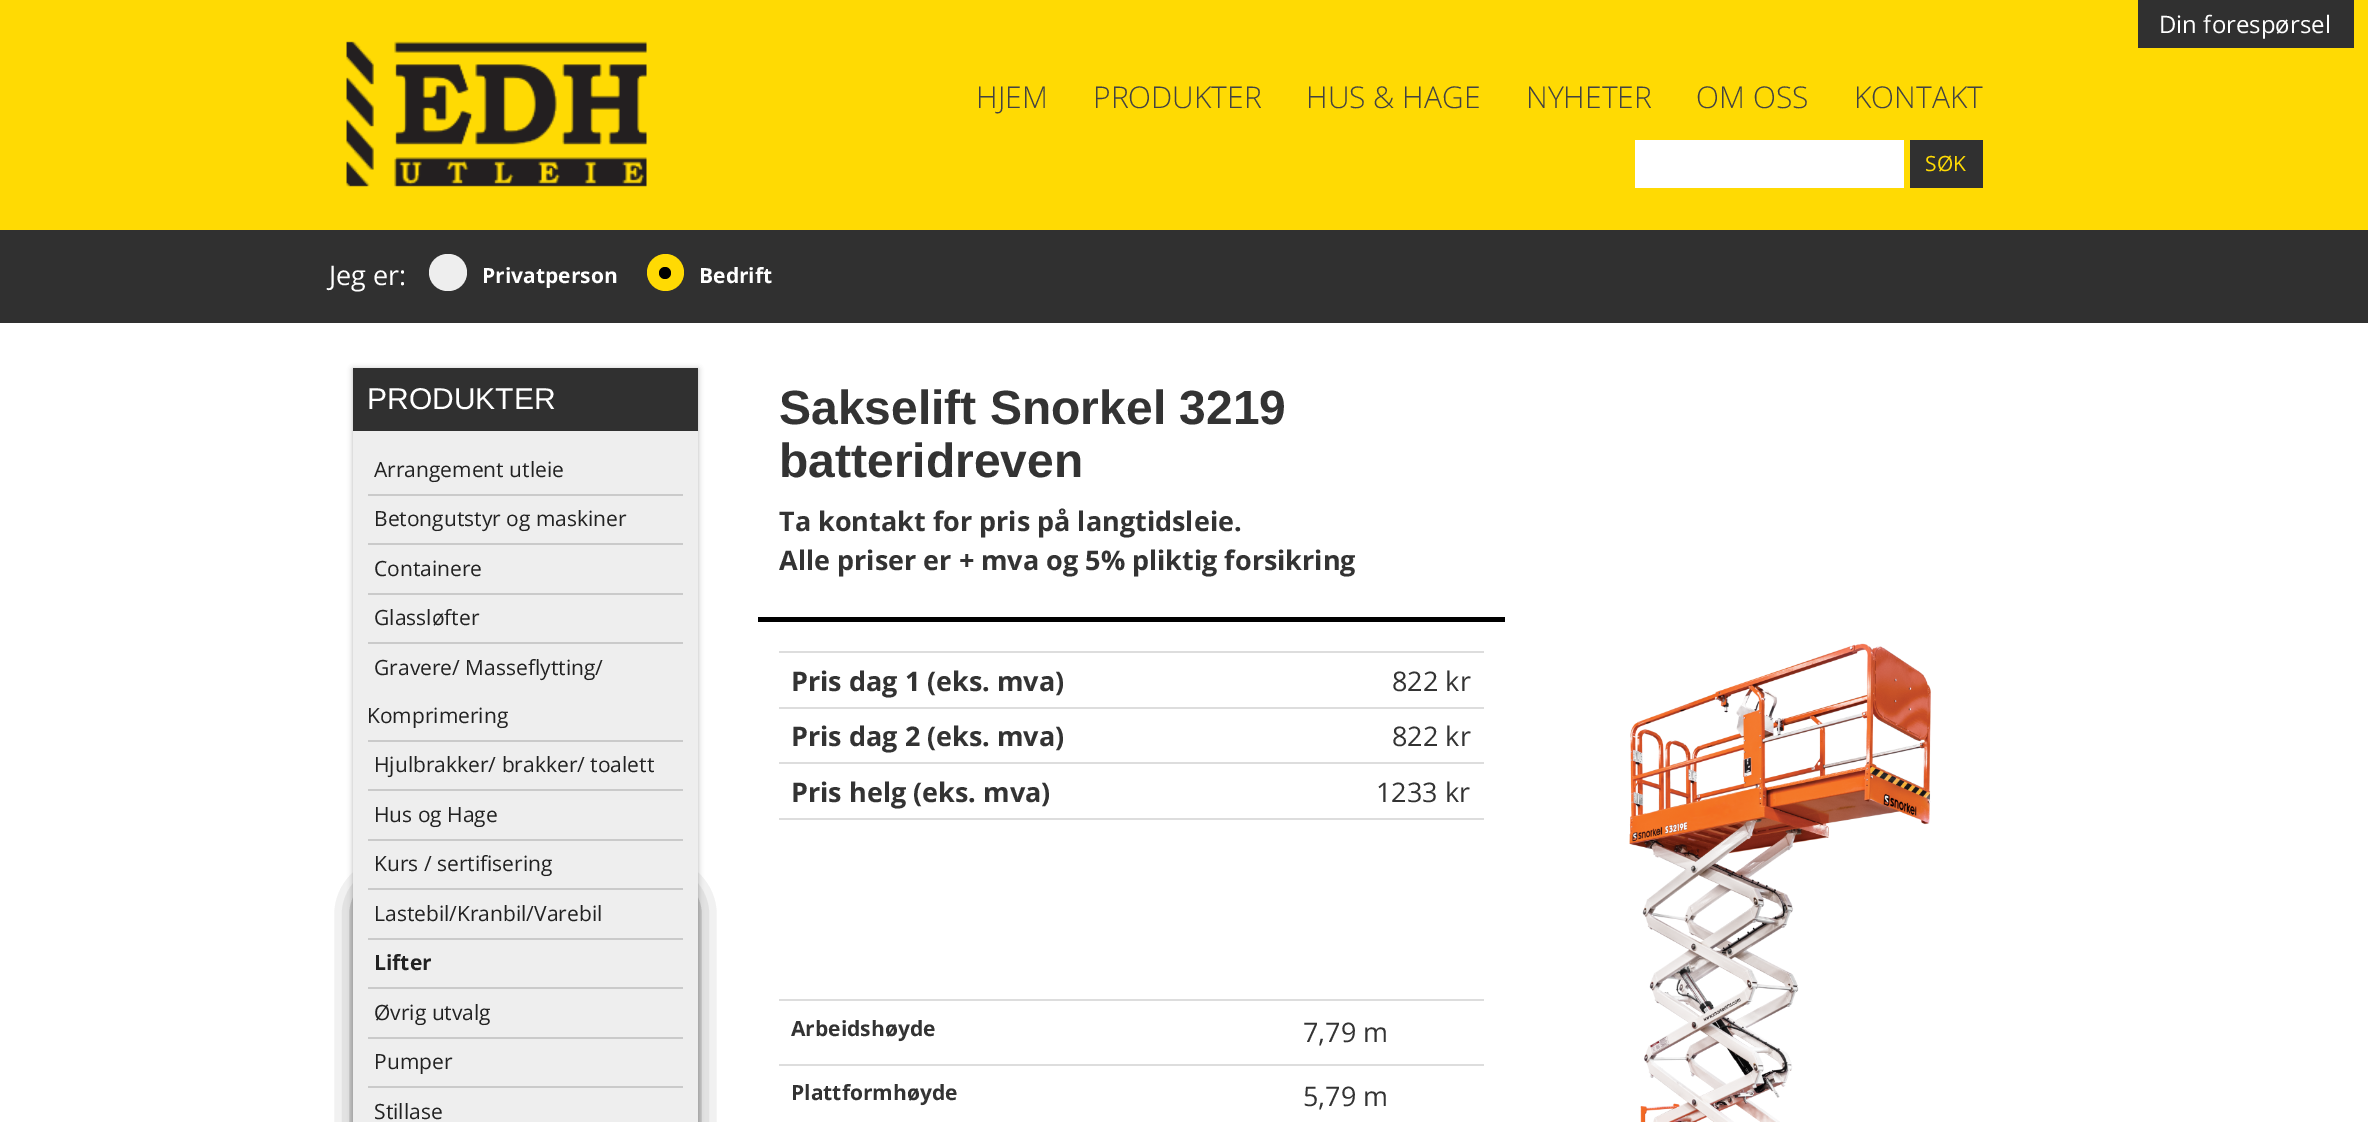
%!PS-Adobe-3.0
%%BoundingBox: 0 0 2368 1122
%%LanguageLevel: 3
%%Pages: 1
%%EndComments
%%BeginProlog
/setink { 3 { 255 div 3 1 roll } repeat setrgbcolor } def
/usefont { [ exch dup neg 0 0 3 -1 roll 0 0 ] selectfont } def
/drawtext { setink usefont moveto show } def
/fillbox { setink rectfill } def
/setalpha { dup .setfillconstantalpha .setstrokeconstantalpha } def
/disc { newpath 0 360 arc closepath } def
/rrect { 5 dict begin { /r /h /w /y /x } { exch def } forall
  x r add y moveto x w add y 2 copy h add r arct x w add y h add x 1 index r arct
  x y h add x y r arct x y 2 copy exch w add exch r arct closepath end } def
/softshadow { 12 dict begin { /a /b /q /h /w /y /x } { exch def } forall gsave /was 0 def
  9 -2 -9 { dup b mul 4 div /e exch def 1 sub .425 mul 2.718 exch exp 1 add a .99 .min exch div /now exch def
    1 1 now sub 1 was sub div sub setalpha /was now def
    w h .min e 2 mul add 0 gt { x e sub y e sub w e 2 mul add h e 2 mul add
      q e add b .6 mul add w h .min 2 div e add .min 0 .max rrect fill } if } for grestore end } def
/drawimage { 5 dict begin { /h /w /y /x /name } { exch def } forall
  gsave x y translate w h scale
  w h 8 [w 0 0 h 0 0] name (r) file false 3 colorimage grestore end } def
%%EndProlog
%%BeginSetup
<< /PageSize [2368 1122] /PageUsesTransparency true >> setpagedevice
%%EndSetup
%%Page: 1 1
0 .pushpdf14devicefilter
0 1122 translate 1 -1 scale
4 setmiterlimit
0 0 2368 1122 255 255 255 fillbox
0 0 2368 230 255 218 3 fillbox
2138 0 216 48 48 48 48 fillbox
(Din forespørsel) 2159 33 /OpenSans-Regular 24 255 255 255 drawtext
(assets/img1.rgb) 346 41 301 146 drawimage
(HJEM) 976 108 /OpenSans-Light 30 66 66 66 drawtext
(PRODUKTER) 1093 108 /OpenSans-Light 30 66 66 66 drawtext
(HUS & HAGE) 1306 108 /OpenSans-Light 30 66 66 66 drawtext
(NYHETER) 1526 108 /OpenSans-Light 30 66 66 66 drawtext
(OM OSS) 1696 108 /OpenSans-Light 30 66 66 66 drawtext
(KONTAKT) 1854 108 /OpenSans-Light 30 66 66 66 drawtext
1635 140 269 48 255 255 255 fillbox
1910 140 73 48 48 48 48 fillbox
(SØK) 1925 171 /OpenSans-Regular 21 255 218 3 drawtext
0 230 2368 93 48 48 48 fillbox
(Jeg er:) 329 285 /OpenSans-Regular 27 255 255 255 drawtext
238 238 238 setink
429 254 38 37 18.5 rrect fill
(Privatperson) 482 283 /OpenSans-Bold 21 255 255 255 drawtext
255 218 3 setink
665.5 272.5 18.5 disc fill
0 0 0 setink
665 273 6 disc fill
(Bedrift) 699 283 /OpenSans-Bold 21 255 255 255 drawtext
0 0 0 setink
353 369 345 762 0 3 0.3 softshadow
368 891 315 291 15 15 0.8 softshadow
368 891 315 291 15 15 0.8 softshadow
353 431 345 691 238 238 238 fillbox
353 368 345 63 48 48 48 fillbox
(PRODUKTER) 367 409 /LiberationSans-Regular 30 255 255 255 drawtext
368 494 315 2 202 202 202 fillbox
(Arrangement utleie) 374 477 /OpenSans-Regular 21 34 34 34 drawtext
368 543 315 2 202 202 202 fillbox
(Betongutstyr og maskiner) 374 526 /OpenSans-Regular 21 34 34 34 drawtext
368 593 315 2 202 202 202 fillbox
(Containere) 374 576 /OpenSans-Regular 21 34 34 34 drawtext
368 642 315 2 202 202 202 fillbox
(Glassløfter) 374 625 /OpenSans-Regular 21 34 34 34 drawtext
368 740 315 2 202 202 202 fillbox
(Gravere/ Masseflytting/) 374 675 /OpenSans-Regular 21 34 34 34 drawtext
(Komprimering) 367 723 /OpenSans-Regular 21 34 34 34 drawtext
368 789 315 2 202 202 202 fillbox
(Hjulbrakker/ brakker/ toalett) 374 772 /OpenSans-Regular 21 34 34 34 drawtext
368 839 315 2 202 202 202 fillbox
(Hus og Hage) 374 822 /OpenSans-Regular 21 34 34 34 drawtext
368 888 315 2 202 202 202 fillbox
(Kurs / sertifisering) 374 871 /OpenSans-Regular 21 34 34 34 drawtext
368 938 315 2 202 202 202 fillbox
(Lastebil/Kranbil/Varebil) 374 921 /OpenSans-Regular 21 34 34 34 drawtext
368 987 315 2 202 202 202 fillbox
(Lifter) 374 970 /OpenSans-Bold 21 34 34 34 drawtext
368 1037 315 2 202 202 202 fillbox
(Øvrig utvalg) 374 1020 /OpenSans-Regular 21 34 34 34 drawtext
368 1086 315 2 202 202 202 fillbox
(Pumper) 374 1069 /OpenSans-Regular 21 34 34 34 drawtext
(Stillase) 374 1119 /OpenSans-Regular 21 34 34 34 drawtext
758 617 747 5 0 0 0 fillbox
(Sakselift Snorkel 3219) 779 424 /LiberationSans-Bold 48 51 51 51 drawtext
(batteridreven) 779 477 /LiberationSans-Bold 48 51 51 51 drawtext
(Ta kontakt for pris på langtidsleie.) 779 531 /OpenSans-Bold 27 51 51 51 drawtext
(Alle priser er + mva og 5% pliktig forsikring) 779 570 /OpenSans-Bold 27 51 51 51 drawtext
779 651 705 2 221 221 221 fillbox
(Pris dag 1 \(eks. mva\)) 791 691 /OpenSans-Bold 27 51 51 51 drawtext
(822 kr) 1392 691 /OpenSans-Regular 27 51 51 51 drawtext
779 707 705 2 221 221 221 fillbox
(Pris dag 2 \(eks. mva\)) 791 746 /OpenSans-Bold 27 51 51 51 drawtext
(822 kr) 1392 746 /OpenSans-Regular 27 51 51 51 drawtext
779 762 705 2 221 221 221 fillbox
(Pris helg \(eks. mva\)) 791 802 /OpenSans-Bold 27 51 51 51 drawtext
779 818 705 2 221 221 221 fillbox
(1233 kr) 1376 802 /OpenSans-Regular 27 51 51 51 drawtext
(Arbeidshøyde) 791 1036 /OpenSans-Bold 21 51 51 51 drawtext
779 999 705 2 221 221 221 fillbox
(7,79 m) 1303 1042 /OpenSans-Regular 27 51 51 51 drawtext
(Plattformhøyde) 791 1100 /OpenSans-Bold 21 51 51 51 drawtext
779 1064 705 2 221 221 221 fillbox
(5,79 m) 1303 1106 /OpenSans-Regular 27 51 51 51 drawtext
(assets/img2.rgb) 1629 643 302 479 drawimage
.poppdf14devicefilter showpage
%%EOF
